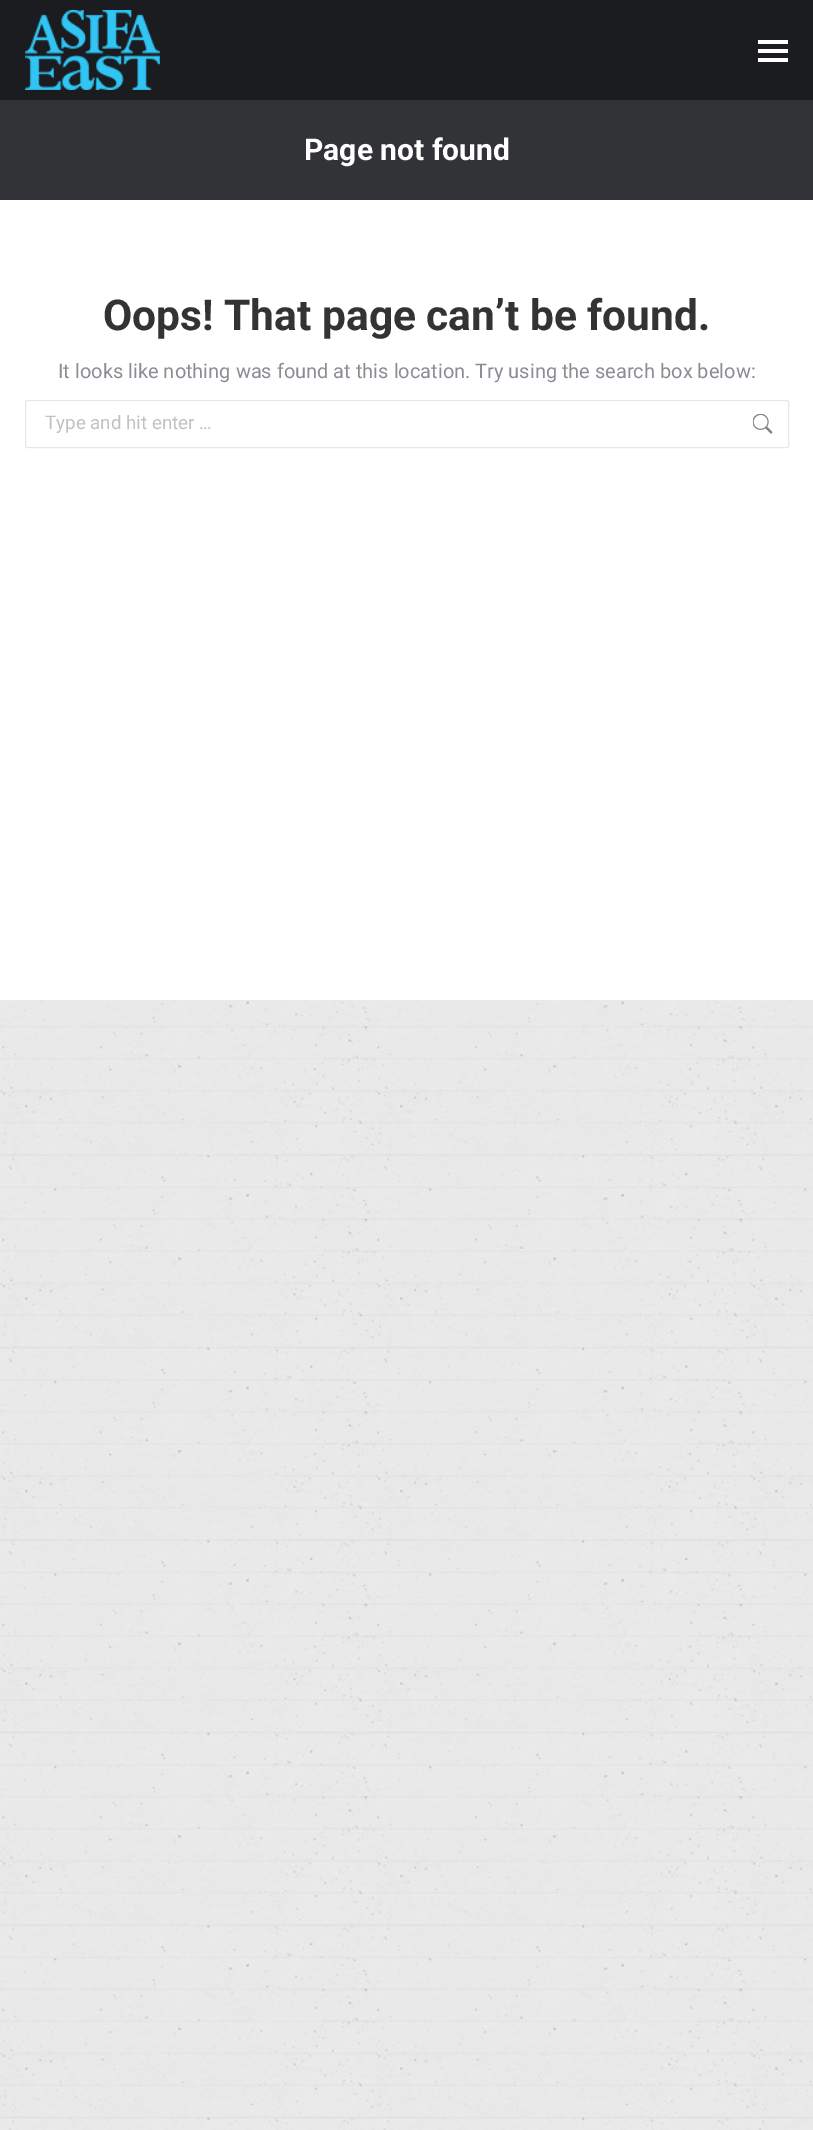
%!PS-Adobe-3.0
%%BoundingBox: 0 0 813 2130
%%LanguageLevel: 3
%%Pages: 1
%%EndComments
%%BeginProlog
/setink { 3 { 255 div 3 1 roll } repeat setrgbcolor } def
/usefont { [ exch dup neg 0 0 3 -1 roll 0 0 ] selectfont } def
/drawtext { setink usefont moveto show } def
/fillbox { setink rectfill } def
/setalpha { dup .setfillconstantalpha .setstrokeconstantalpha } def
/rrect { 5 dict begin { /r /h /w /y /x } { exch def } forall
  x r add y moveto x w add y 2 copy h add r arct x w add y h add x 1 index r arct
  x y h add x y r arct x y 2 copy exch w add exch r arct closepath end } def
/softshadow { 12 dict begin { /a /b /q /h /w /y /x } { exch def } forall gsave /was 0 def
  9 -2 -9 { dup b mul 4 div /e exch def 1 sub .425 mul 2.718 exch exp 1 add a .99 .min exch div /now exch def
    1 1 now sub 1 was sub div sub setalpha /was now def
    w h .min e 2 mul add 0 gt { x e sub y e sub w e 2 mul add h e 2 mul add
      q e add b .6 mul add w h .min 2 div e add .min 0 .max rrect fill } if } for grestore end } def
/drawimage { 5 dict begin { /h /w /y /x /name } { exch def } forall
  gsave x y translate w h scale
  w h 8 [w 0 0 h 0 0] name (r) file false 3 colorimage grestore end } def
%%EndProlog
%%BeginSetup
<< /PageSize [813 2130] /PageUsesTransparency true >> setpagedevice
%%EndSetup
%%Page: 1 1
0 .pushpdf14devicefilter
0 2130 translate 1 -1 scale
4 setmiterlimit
0 0 813 2130 255 255 255 fillbox
(assets/img1.rgb) 0 1000 813 1130 drawimage
0 100 813 100 49 51 55 fillbox
0 0 0 setink
-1 -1 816 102 0 9.5 0.07 softshadow
0 0 813 100 26 28 32 fillbox
(assets/img2.rgb) 25 10 135 80 drawimage
758 40 30 4 255 255 255 fillbox
758 49 30 4 255 255 255 fillbox
758 58 30 4 255 255 255 fillbox
(Page not found) 304 160 /Roboto-Bold 30 255 255 255 drawtext
(Oops! That page can’t be found.) 103 330 /Roboto-Bold 42.5 51 51 51 drawtext
(It looks like nothing was found at this location. Try using the search box below:) 58 378 /Roboto-Regular 20 139 141 148 drawtext
231 231 231 setink
25.5 400.5 763 47 2 rrect stroke
(Type and hit enter …) 45 429 /Roboto-Regular 18.75 192 193 196 drawtext
(assets/img3.rgb) 753 414 20 20 drawimage
.poppdf14devicefilter showpage
%%EOF
